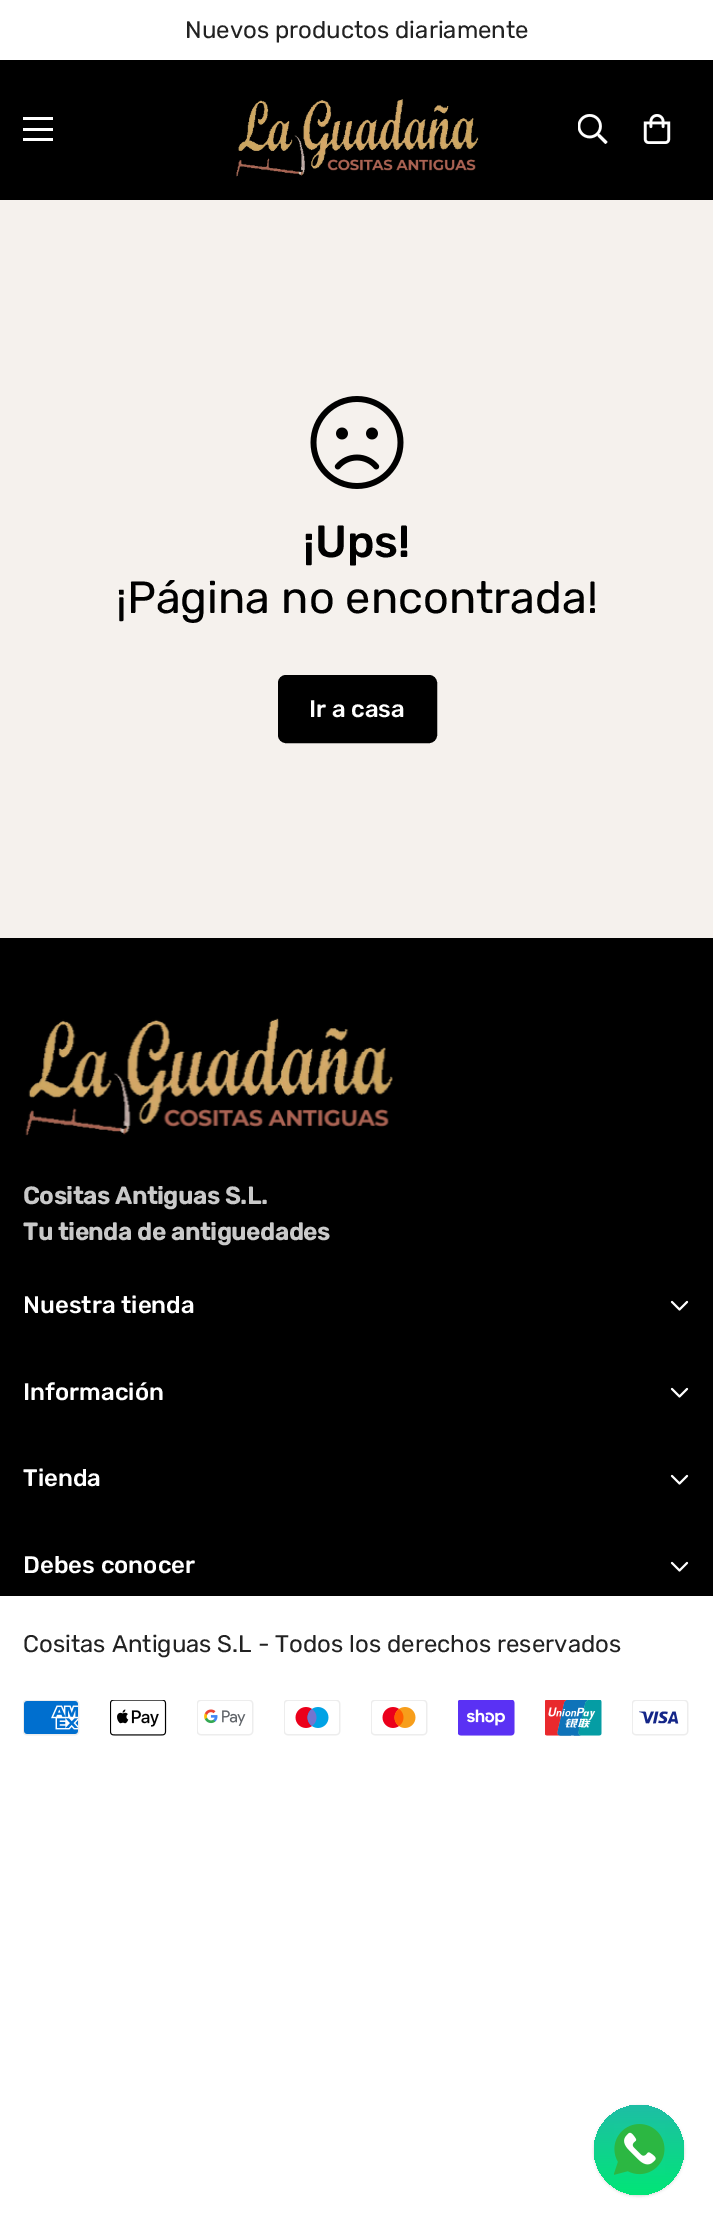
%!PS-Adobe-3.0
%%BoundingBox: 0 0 713 2224
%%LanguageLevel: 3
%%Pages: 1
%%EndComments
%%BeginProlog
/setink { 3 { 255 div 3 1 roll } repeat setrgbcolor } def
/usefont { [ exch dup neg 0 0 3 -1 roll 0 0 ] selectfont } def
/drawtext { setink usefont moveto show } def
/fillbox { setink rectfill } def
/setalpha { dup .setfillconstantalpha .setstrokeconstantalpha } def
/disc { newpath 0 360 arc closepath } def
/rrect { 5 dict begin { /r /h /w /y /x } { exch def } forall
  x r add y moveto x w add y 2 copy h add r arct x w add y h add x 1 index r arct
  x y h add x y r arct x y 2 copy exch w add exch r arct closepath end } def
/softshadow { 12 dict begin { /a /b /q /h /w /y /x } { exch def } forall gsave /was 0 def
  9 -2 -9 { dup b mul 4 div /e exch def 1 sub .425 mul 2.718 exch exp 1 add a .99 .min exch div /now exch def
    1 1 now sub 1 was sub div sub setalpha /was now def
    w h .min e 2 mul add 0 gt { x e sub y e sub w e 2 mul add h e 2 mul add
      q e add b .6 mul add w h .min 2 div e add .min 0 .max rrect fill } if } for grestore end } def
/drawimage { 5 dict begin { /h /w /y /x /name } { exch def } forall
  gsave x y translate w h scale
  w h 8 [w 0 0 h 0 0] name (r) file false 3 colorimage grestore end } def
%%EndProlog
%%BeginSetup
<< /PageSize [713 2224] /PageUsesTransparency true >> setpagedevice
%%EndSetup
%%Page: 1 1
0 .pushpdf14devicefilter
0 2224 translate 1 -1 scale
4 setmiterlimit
0 0 713 2224 255 255 255 fillbox
(Nuevos productos diariamente) 185 38 /Rubik-Regular 24 34 34 34 drawtext
0 60 713 140 0 0 0 fillbox
23 128 30 3 255 255 255 fillbox
23 117 30 3 255 255 255 fillbox
23 138 30 3 255 255 255 fillbox
(assets/img1.rgb) 236 99 243 78 drawimage
(assets/img2.rgb) 578 114 30 30 drawimage
(assets/img3.rgb) 643 114 28 30 drawimage
0 200 713 738 245 241 237 fillbox
(assets/img4.rgb) 310 396 94 93 drawimage
(¡Ups!) 303 557 /Rubik-Medium 45 0 0 0 drawtext
(¡Página no encontrada!) 116 613 /Rubik-Regular 45 0 0 0 drawtext
279 676 157 66 7 rrect gsave fill grestore
2 setlinewidth
stroke
(Ir a casa) 309 717 /Rubik-Medium 24 255 255 255 drawtext
0 938 713 658 0 0 0 fillbox
(assets/img5.rgb) 25 1018 368 118 drawimage
(Cositas Antiguas S.L.) 23 1204 /Rubik-Bold 24 201 201 201 drawtext
(Tu tienda de antiguedades) 23 1240 /Rubik-Bold 24 201 201 201 drawtext
(Nuestra tienda) 23 1313 /Rubik-Medium 24 255 255 255 drawtext
(assets/img6.rgb) 670 1300 19 11 drawimage
(Información) 23 1400 /Rubik-Medium 24 255 255 255 drawtext
(assets/img6.rgb) 670 1387 19 11 drawimage
(Tienda) 23 1486 /Rubik-Medium 24 255 255 255 drawtext
(assets/img6.rgb) 670 1474 19 11 drawimage
(Debes conocer) 23 1573 /Rubik-Medium 24 255 255 255 drawtext
(assets/img6.rgb) 670 1561 19 11 drawimage
(Cositas Antiguas S.L - Todos los derechos reservados) 23 1652 /Rubik-Regular 24 34 34 34 drawtext
(assets/img7.rgb) 23 1700 57 36 drawimage
(assets/img8.rgb) 110 1700 57 36 drawimage
(assets/img9.rgb) 197 1700 57 36 drawimage
(assets/img10.rgb) 284 1700 57 36 drawimage
(assets/img11.rgb) 371 1700 57 36 drawimage
(assets/img12.rgb) 458 1700 57 36 drawimage
(assets/img13.rgb) 545 1700 57 36 drawimage
(assets/img14.rgb) 632 1700 57 36 drawimage
0 0 0 setink
594 2106 90 90 45 1.5 0.15 softshadow
gsave 639 2150 45 disc clip newpath
<< /ShadingType 2 /ColorSpace /DeviceRGB /Coords [639 2105 639 2195] /Extend [true true] /Function << /FunctionType 2 /Domain [0 1] /C0 [0.118 0.745 0.647] /C1 [0.004 0.902 0.467] /N 1 >> >> shfill grestore
(assets/img15.rgb) 614 2124 51 51 drawimage
.poppdf14devicefilter showpage
%%EOF
